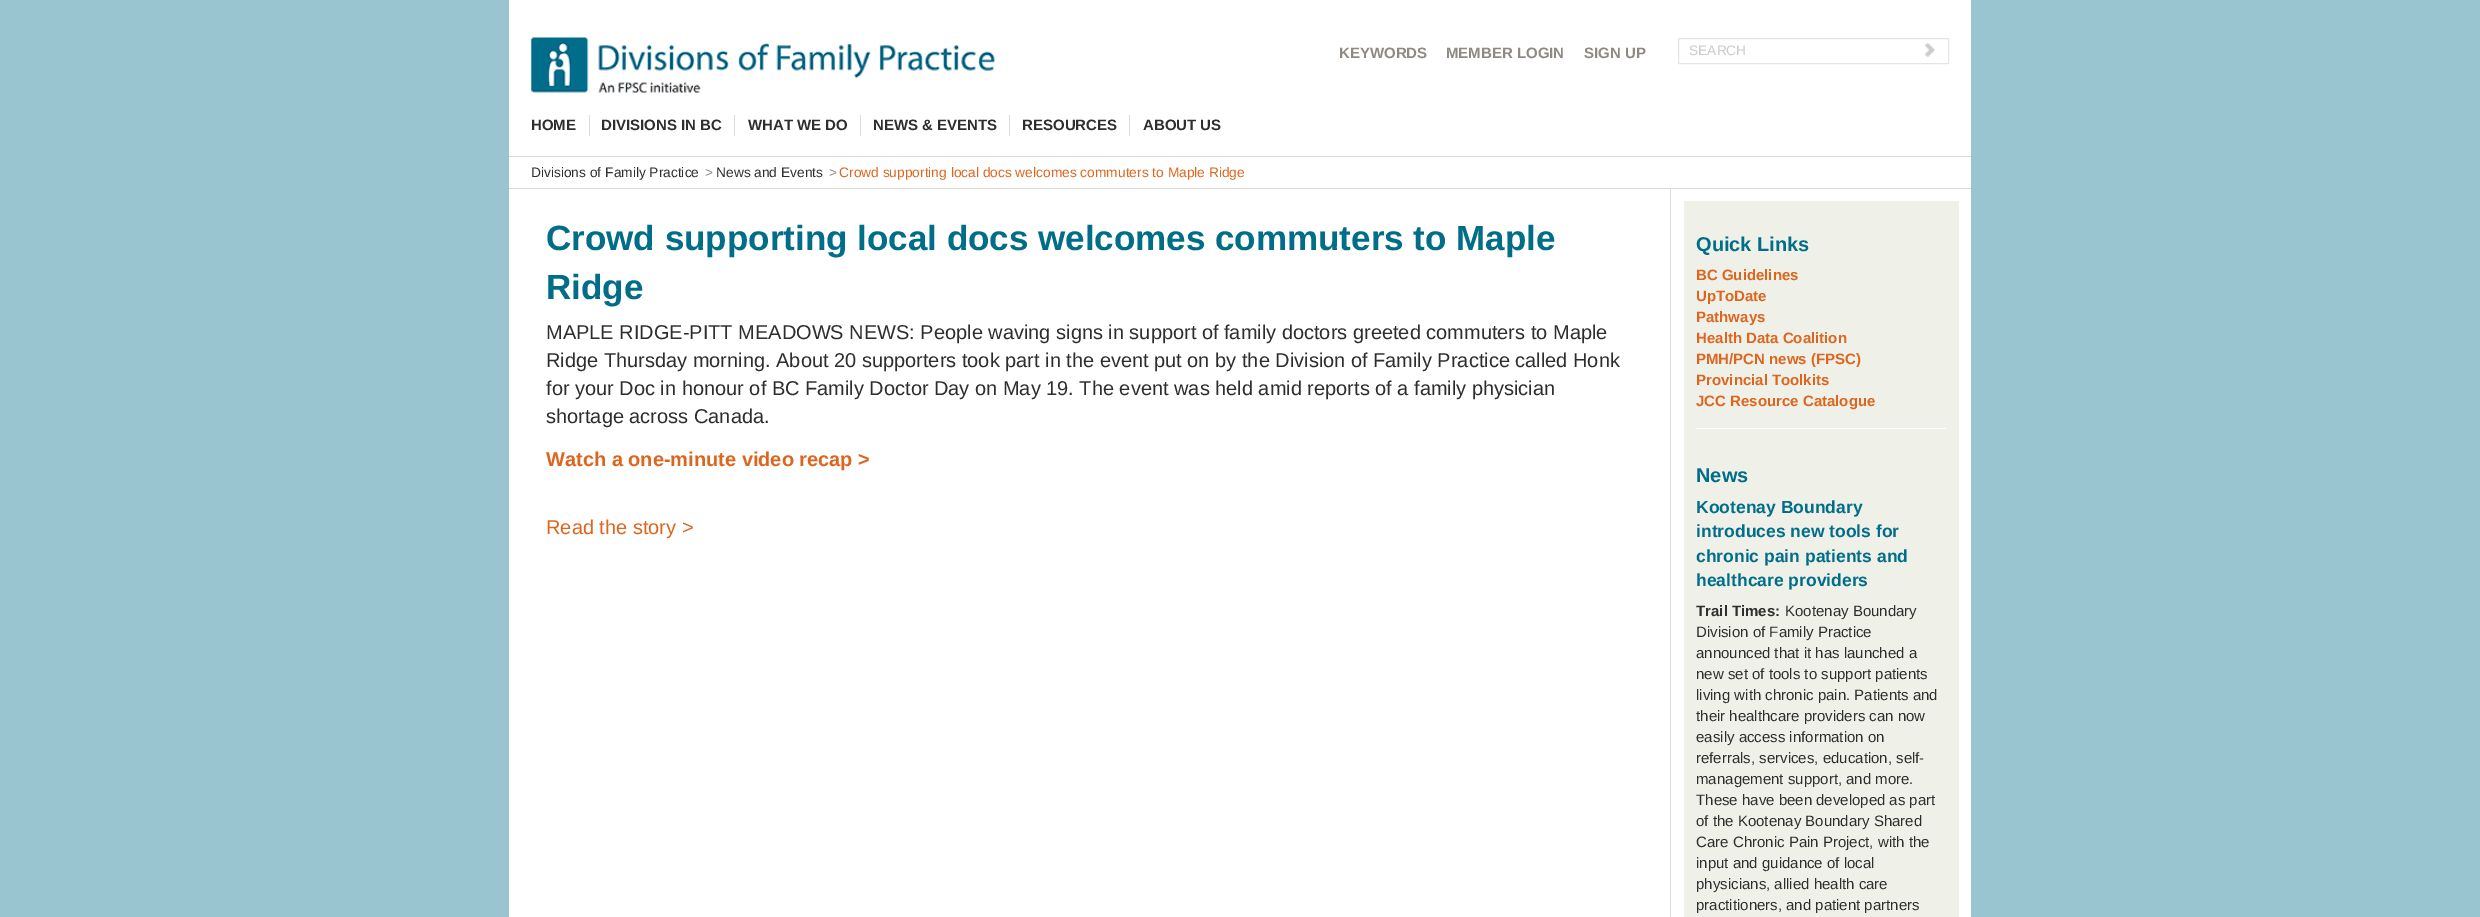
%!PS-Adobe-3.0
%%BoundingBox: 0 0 2480 917
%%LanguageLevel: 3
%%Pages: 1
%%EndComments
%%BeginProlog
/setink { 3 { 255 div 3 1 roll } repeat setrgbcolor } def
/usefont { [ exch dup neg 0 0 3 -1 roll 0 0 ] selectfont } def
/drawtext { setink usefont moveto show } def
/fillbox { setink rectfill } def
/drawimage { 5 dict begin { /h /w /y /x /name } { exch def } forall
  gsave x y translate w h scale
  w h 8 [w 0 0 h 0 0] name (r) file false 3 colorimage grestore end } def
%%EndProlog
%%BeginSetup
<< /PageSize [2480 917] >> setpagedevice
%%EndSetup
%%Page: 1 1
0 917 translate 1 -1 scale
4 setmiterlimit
0 0 2480 917 153 197 208 fillbox
509 0 1462 156 255 255 255 fillbox
(assets/img1.rgb) 531 37 464 56 drawimage
(KEYWORDS) 1339 58 /LiberationSans-Bold 15 142 138 129 drawtext
(MEMBER LOGIN) 1446 58 /LiberationSans-Bold 15 142 138 129 drawtext
(SIGN UP) 1584 58 /LiberationSans-Bold 15 142 138 129 drawtext
(assets/img2.rgb) 1925 43 10 14 drawimage
229 229 229 setink
1678.5 38.5 270 25 rectstroke
(SEARCH) 1689 55 /LiberationSans-Regular 13.75 202 202 202 drawtext
589 115 1 21 221 220 217 fillbox
(HOME) 531 130 /LiberationSans-Bold 15 46 46 46 drawtext
734 115 1 21 221 220 217 fillbox
(DIVISIONS IN BC) 601 130 /LiberationSans-Bold 15 46 46 46 drawtext
860 115 1 21 221 220 217 fillbox
(WHAT WE DO) 748 130 /LiberationSans-Bold 15 46 46 46 drawtext
1009 115 1 21 221 220 217 fillbox
(NEWS & EVENTS) 873 130 /LiberationSans-Bold 15 46 46 46 drawtext
1129 115 1 21 221 220 217 fillbox
(RESOURCES) 1022 130 /LiberationSans-Bold 15 46 46 46 drawtext
(ABOUT US) 1143 130 /LiberationSans-Bold 15 46 46 46 drawtext
509 157 1462 31 255 255 255 fillbox
509 156 1462 1 221 220 217 fillbox
509 188 1462 1 221 220 217 fillbox
(Divisions of Family Practice) 531 177 /LiberationSans-Regular 13.75 46 46 46 drawtext
(>) 705 177 /LiberationSans-Regular 13.75 142 138 129 drawtext
(News and Events) 716 177 /LiberationSans-Regular 13.75 46 46 46 drawtext
(>) 829 177 /LiberationSans-Regular 13.75 142 138 129 drawtext
(Crowd supporting local docs welcomes commuters to Maple Ridge) 839 177 /LiberationSans-Regular 13.75 221 101 30 drawtext
509 189 1462 728 255 255 255 fillbox
1670 189 1 728 221 220 217 fillbox
(Crowd supporting local docs welcomes commuters to Maple) 546 250 /LiberationSans-Bold 35 0 109 137 drawtext
(Ridge) 546 299 /LiberationSans-Bold 35 0 109 137 drawtext
(MAPLE RIDGE-PITT MEADOWS NEWS: People waving signs in support of family doctors greeted commuters to Maple) 546 339 /LiberationSans-Regular 20 46 46 46 drawtext
(Ridge Thursday morning. About 20 supporters took part in the event put on by the Division of Family Practice called Honk) 546 367 /LiberationSans-Regular 20 46 46 46 drawtext
(for your Doc in honour of BC Family Doctor Day on May 19. The event was held amid reports of a family physician) 546 395 /LiberationSans-Regular 20 46 46 46 drawtext
(shortage across Canada.) 546 423 /LiberationSans-Regular 20 46 46 46 drawtext
(Watch a one-minute video recap >) 546 466 /LiberationSans-Bold 20 221 101 30 drawtext
(Read the story >) 546 534 /LiberationSans-Regular 20 221 101 30 drawtext
1684 201 275 716 239 241 233 fillbox
1696 428 250 1 255 255 255 fillbox
(Quick Links) 1696 251 /LiberationSans-Bold 20 0 109 137 drawtext
(BC Guidelines) 1696 280 /LiberationSans-Bold 15 221 101 30 drawtext
(UpToDate) 1696 301 /LiberationSans-Bold 15 221 101 30 drawtext
(Pathways) 1696 322 /LiberationSans-Bold 15 221 101 30 drawtext
(Health Data Coalition) 1696 343 /LiberationSans-Bold 15 221 101 30 drawtext
(PMH/PCN news \(FPSC\)) 1696 364 /LiberationSans-Bold 15 221 101 30 drawtext
(Provincial Toolkits) 1696 385 /LiberationSans-Bold 15 221 101 30 drawtext
(JCC Resource Catalogue) 1696 406 /LiberationSans-Bold 15 221 101 30 drawtext
(News) 1696 482 /LiberationSans-Bold 20 0 109 137 drawtext
(Kootenay Boundary) 1696 513 /LiberationSans-Bold 17.5 0 109 137 drawtext
(introduces new tools for) 1696 537 /LiberationSans-Bold 17.5 0 109 137 drawtext
(chronic pain patients and) 1696 562 /LiberationSans-Bold 17.5 0 109 137 drawtext
(healthcare providers) 1696 586 /LiberationSans-Bold 17.5 0 109 137 drawtext
(Trail Times:) 1696 616 /LiberationSans-Bold 15 46 46 46 drawtext
(Kootenay Boundary) 1785 616 /LiberationSans-Regular 15 46 46 46 drawtext
(Division of Family Practice) 1696 637 /LiberationSans-Regular 15 46 46 46 drawtext
(announced that it has launched a) 1696 658 /LiberationSans-Regular 15 46 46 46 drawtext
(new set of tools to support patients) 1696 679 /LiberationSans-Regular 15 46 46 46 drawtext
(living with chronic pain. Patients and) 1696 700 /LiberationSans-Regular 15 46 46 46 drawtext
(their healthcare providers can now) 1696 721 /LiberationSans-Regular 15 46 46 46 drawtext
(easily access information on) 1696 742 /LiberationSans-Regular 15 46 46 46 drawtext
(referrals, services, education, self-) 1696 763 /LiberationSans-Regular 15 46 46 46 drawtext
(management support, and more.) 1696 784 /LiberationSans-Regular 15 46 46 46 drawtext
(These have been developed as part) 1696 805 /LiberationSans-Regular 15 46 46 46 drawtext
(of the Kootenay Boundary Shared) 1696 826 /LiberationSans-Regular 15 46 46 46 drawtext
(Care Chronic Pain Project, with the) 1696 847 /LiberationSans-Regular 15 46 46 46 drawtext
(input and guidance of local) 1696 868 /LiberationSans-Regular 15 46 46 46 drawtext
(physicians, allied health care) 1696 889 /LiberationSans-Regular 15 46 46 46 drawtext
(practitioners, and patient partners) 1696 910 /LiberationSans-Regular 15 46 46 46 drawtext
showpage
%%EOF
